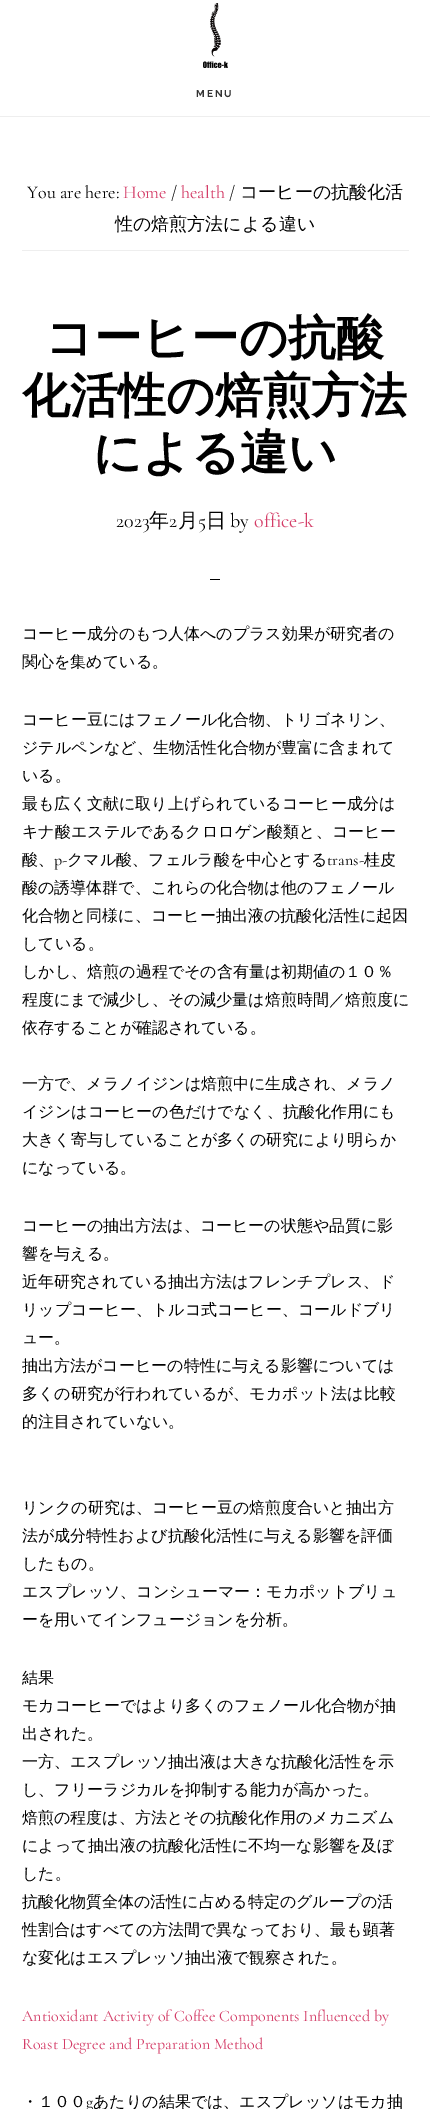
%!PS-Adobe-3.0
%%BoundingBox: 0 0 430 2109
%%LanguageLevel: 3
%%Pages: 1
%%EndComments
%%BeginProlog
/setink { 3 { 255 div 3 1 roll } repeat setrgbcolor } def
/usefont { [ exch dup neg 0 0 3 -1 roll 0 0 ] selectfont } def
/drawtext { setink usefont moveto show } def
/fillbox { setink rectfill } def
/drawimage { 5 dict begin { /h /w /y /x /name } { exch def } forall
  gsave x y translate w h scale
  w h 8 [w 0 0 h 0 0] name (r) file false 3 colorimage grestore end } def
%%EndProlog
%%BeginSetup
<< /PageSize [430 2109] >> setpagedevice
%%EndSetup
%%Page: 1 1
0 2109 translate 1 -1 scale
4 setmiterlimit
0 0 430 2109 255 255 255 fillbox
0 116 430 1 238 238 238 fillbox
(assets/img1.rgb) 203 3 25 65 drawimage
/Raleway-Thin 10 usefont
51 51 51 setink
196 97 moveto 2 0 (MENU) ashow
22 250 387 1 238 238 238 fillbox
(You are here:) 27 198 /CormorantGaramond-Regular 18 0 0 0 drawtext
(Home) 123 198 /CormorantGaramond-Regular 18 212 60 103 drawtext
(/) 171 198 /CormorantGaramond-Regular 18 0 0 0 drawtext
(health) 181 198 /CormorantGaramond-Regular 18 212 60 103 drawtext
(/) 229 198 /CormorantGaramond-Regular 18 0 0 0 drawtext
(コーヒーの抗酸化活) 240 198 /WenQuanYiZenHei-Medium 18 0 0 0 drawtext
(性の焙煎方法による違い) 115 230 /WenQuanYiZenHei-Medium 18 0 0 0 drawtext
(コーヒーの抗酸) 45 354 /WenQuanYiZenHei-Bold 48 0 0 0 drawtext
(化活性の焙煎方法) 22 412 /WenQuanYiZenHei-Bold 48 0 0 0 drawtext
(による違い) 93 469 /WenQuanYiZenHei-Bold 48 0 0 0 drawtext
(2023) 116 527 /CormorantGaramond-Regular 20 0 0 0 drawtext
(年) 149 527 /WenQuanYiZenHei-Medium 20 0 0 0 drawtext
(2) 169 527 /CormorantGaramond-Regular 20 0 0 0 drawtext
(月) 178 527 /WenQuanYiZenHei-Medium 20 0 0 0 drawtext
(5) 198 527 /CormorantGaramond-Regular 20 0 0 0 drawtext
(日) 206 527 /WenQuanYiZenHei-Medium 20 0 0 0 drawtext
(by) 230 527 /CormorantGaramond-Regular 20 0 0 0 drawtext
(office-k) 254 527 /CormorantGaramond-Regular 20 212 60 103 drawtext
210 579 10 1 0 0 0 fillbox
(コーヒー成分のもつ人体へのプラス効果が研究者の) 22 639 /WenQuanYiZenHei-Medium 16 0 0 0 drawtext
(関心を集めている。) 22 667 /WenQuanYiZenHei-Medium 16 0 0 0 drawtext
(コーヒー豆にはフェノール化合物、トリゴネリン、) 22 725 /WenQuanYiZenHei-Medium 16 0 0 0 drawtext
(ジテルペンなど、生物活性化合物が豊富に含まれて) 22 753 /WenQuanYiZenHei-Medium 16 0 0 0 drawtext
(いる。) 22 781 /WenQuanYiZenHei-Medium 16 0 0 0 drawtext
(最も広く文献に取り上げられているコーヒー成分は) 22 809 /WenQuanYiZenHei-Medium 16 0 0 0 drawtext
(キナ酸エステルであるクロロゲン酸類と、コーヒー) 22 837 /WenQuanYiZenHei-Medium 16 0 0 0 drawtext
(酸、) 22 865 /WenQuanYiZenHei-Medium 16 0 0 0 drawtext
(p-) 54 865 /CormorantGaramond-Regular 16 0 0 0 drawtext
(クマル酸、フェルラ酸を中心とする) 67 865 /WenQuanYiZenHei-Medium 16 0 0 0 drawtext
(trans-) 327 865 /CormorantGaramond-Regular 16 0 0 0 drawtext
(桂皮) 364 865 /WenQuanYiZenHei-Medium 16 0 0 0 drawtext
(酸の誘導体群で、これらの化合物は他のフェノール) 22 893 /WenQuanYiZenHei-Medium 16 0 0 0 drawtext
(化合物と同様に、コーヒー抽出液の抗酸化活性に起因) 22 921 /WenQuanYiZenHei-Medium 16 0 0 0 drawtext
(している。) 22 949 /WenQuanYiZenHei-Medium 16 0 0 0 drawtext
(しかし、焙煎の過程でその含有量は初期値の１０％) 22 977 /WenQuanYiZenHei-Medium 16 0 0 0 drawtext
(程度にまで減少し、その減少量は焙煎時間／焙煎度に) 22 1005 /WenQuanYiZenHei-Medium 16 0 0 0 drawtext
(依存することが確認されている。) 22 1033 /WenQuanYiZenHei-Medium 16 0 0 0 drawtext
(一方で、メラノイジンは焙煎中に生成され、メラノ) 22 1089 /WenQuanYiZenHei-Medium 16 0 0 0 drawtext
(イジンはコーヒーの色だけでなく、抗酸化作用にも) 22 1117 /WenQuanYiZenHei-Medium 16 0 0 0 drawtext
(大きく寄与していることが多くの研究により明らか) 22 1145 /WenQuanYiZenHei-Medium 16 0 0 0 drawtext
(になっている。) 22 1173 /WenQuanYiZenHei-Medium 16 0 0 0 drawtext
(コーヒーの抽出方法は、コーヒーの状態や品質に影) 22 1231 /WenQuanYiZenHei-Medium 16 0 0 0 drawtext
(響を与える。) 22 1259 /WenQuanYiZenHei-Medium 16 0 0 0 drawtext
(近年研究されている抽出方法はフレンチプレス、ド) 22 1287 /WenQuanYiZenHei-Medium 16 0 0 0 drawtext
(リップコーヒー、トルコ式コーヒー、コールドブリ) 22 1315 /WenQuanYiZenHei-Medium 16 0 0 0 drawtext
(ュー。) 22 1343 /WenQuanYiZenHei-Medium 16 0 0 0 drawtext
(抽出方法がコーヒーの特性に与える影響については) 22 1371 /WenQuanYiZenHei-Medium 16 0 0 0 drawtext
(多くの研究が行われているが、モカポット法は比較) 22 1399 /WenQuanYiZenHei-Medium 16 0 0 0 drawtext
(的注目されていない。) 22 1427 /WenQuanYiZenHei-Medium 16 0 0 0 drawtext
(リンクの研究は、コーヒー豆の焙煎度合いと抽出方) 22 1513 /WenQuanYiZenHei-Medium 16 0 0 0 drawtext
(法が成分特性および抗酸化活性に与える影響を評価) 22 1541 /WenQuanYiZenHei-Medium 16 0 0 0 drawtext
(したもの。) 22 1569 /WenQuanYiZenHei-Medium 16 0 0 0 drawtext
(エスプレッソ、コンシューマー：モカポットブリュ) 22 1597 /WenQuanYiZenHei-Medium 16 0 0 0 drawtext
(ーを用いてインフュージョンを分析。) 22 1625 /WenQuanYiZenHei-Medium 16 0 0 0 drawtext
(結果) 22 1683 /WenQuanYiZenHei-Medium 16 0 0 0 drawtext
(モカコーヒーではより多くのフェノール化合物が抽) 22 1711 /WenQuanYiZenHei-Medium 16 0 0 0 drawtext
(出された。) 22 1739 /WenQuanYiZenHei-Medium 16 0 0 0 drawtext
(一方、エスプレッソ抽出液は大きな抗酸化活性を示) 22 1767 /WenQuanYiZenHei-Medium 16 0 0 0 drawtext
(し、フリーラジカルを抑制する能力が高かった。) 22 1795 /WenQuanYiZenHei-Medium 16 0 0 0 drawtext
(焙煎の程度は、方法とその抗酸化作用のメカニズム) 22 1823 /WenQuanYiZenHei-Medium 16 0 0 0 drawtext
(によって抽出液の抗酸化活性に不均一な影響を及ぼ) 22 1851 /WenQuanYiZenHei-Medium 16 0 0 0 drawtext
(した。) 22 1879 /WenQuanYiZenHei-Medium 16 0 0 0 drawtext
(抗酸化物質全体の活性に占める特定のグループの活) 22 1907 /WenQuanYiZenHei-Medium 16 0 0 0 drawtext
(性割合はすべての方法間で異なっており、最も顕著) 22 1935 /WenQuanYiZenHei-Medium 16 0 0 0 drawtext
(な変化はエスプレッソ抽出液で観察された。) 22 1963 /WenQuanYiZenHei-Medium 16 0 0 0 drawtext
(Antioxidant Activity of Coffee Components Influenced by) 22 2021 /CormorantGaramond-Regular 16 212 60 103 drawtext
(Roast Degree and Preparation Method) 22 2049 /CormorantGaramond-Regular 16 212 60 103 drawtext
(・１００) 22 2107 /WenQuanYiZenHei-Medium 16 0 0 0 drawtext
(g) 86 2107 /CormorantGaramond-Regular 16 0 0 0 drawtext
(あたりの結果では、エスプレッソはモカ抽) 93 2107 /WenQuanYiZenHei-Medium 16 0 0 0 drawtext
showpage
%%EOF
